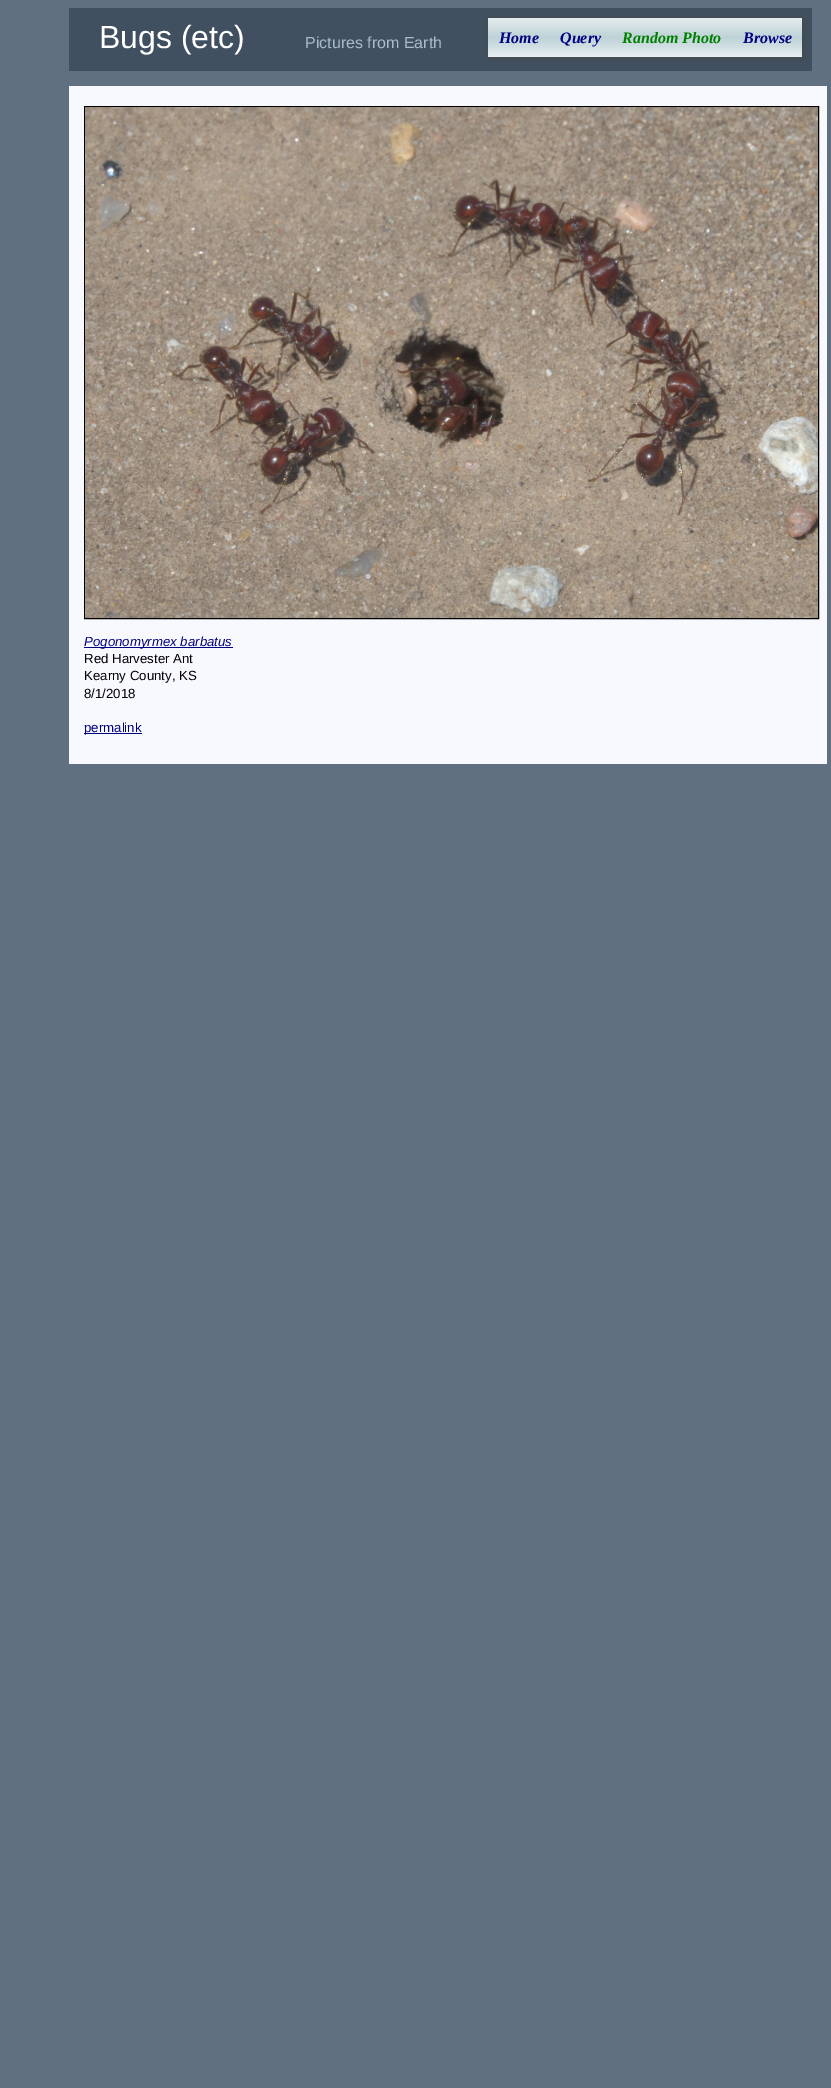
%!PS-Adobe-3.0
%%BoundingBox: 0 0 831 2088
%%LanguageLevel: 3
%%Pages: 1
%%EndComments
%%BeginProlog
/setink { 3 { 255 div 3 1 roll } repeat setrgbcolor } def
/usefont { [ exch dup neg 0 0 3 -1 roll 0 0 ] selectfont } def
/drawtext { setink usefont moveto show } def
/fillbox { setink rectfill } def
/setalpha { dup .setfillconstantalpha .setstrokeconstantalpha } def
/rrect { 5 dict begin { /r /h /w /y /x } { exch def } forall
  x r add y moveto x w add y 2 copy h add r arct x w add y h add x 1 index r arct
  x y h add x y r arct x y 2 copy exch w add exch r arct closepath end } def
/softshadow { 12 dict begin { /a /b /q /h /w /y /x } { exch def } forall gsave /was 0 def
  9 -2 -9 { dup b mul 4 div /e exch def 1 sub .425 mul 2.718 exch exp 1 add a .99 .min exch div /now exch def
    1 1 now sub 1 was sub div sub setalpha /was now def
    w h .min e 2 mul add 0 gt { x e sub y e sub w e 2 mul add h e 2 mul add
      q e add b .6 mul add w h .min 2 div e add .min 0 .max rrect fill } if } for grestore end } def
/drawimage { 5 dict begin { /h /w /y /x /name } { exch def } forall
  gsave x y translate w h scale
  w h 8 [w 0 0 h 0 0] name (r) file false 3 colorimage grestore end } def
%%EndProlog
%%BeginSetup
<< /PageSize [831 2088] /PageUsesTransparency true >> setpagedevice
%%EndSetup
%%Page: 1 1
0 .pushpdf14devicefilter
0 2088 translate 1 -1 scale
4 setmiterlimit
0 0 831 2088 96 112 128 fillbox
69 8 743 63 64 80 96 fillbox
(Bugs \(etc\)) 99 48 /LiberationSans-Regular 32 255 255 255 drawtext
(Pictures from Earth) 305 48 /LiberationSans-Regular 16 170 187 204 drawtext
68 68 68 setink
489 19 314 39 0 4 1 softshadow
gsave 488 18 moveto 802 18 lineto 802 57 lineto 488 57 lineto closepath clip newpath
<< /ShadingType 2 /ColorSpace /DeviceRGB /Coords [645 18 645 57] /Extend [true true] /Function << /FunctionType 3 /Domain [0 1] /Functions [<< /FunctionType 2 /Domain [0 1] /C0 [0.902 0.925 0.933] /C1 [0.741 0.824 0.843] /N 1 >> << /FunctionType 2 /Domain [0 1] /C0 [0.741 0.824 0.843] /C1 [0.91 0.933 0.941] /N 1 >>] /Bounds [0.5] /Encode [0 1 0 1] >> >> shfill grestore
(Home) 499 43 /LiberationSerif-BoldItalic 16 0 0 128 drawtext
(Query) 560 43 /LiberationSerif-BoldItalic 16 0 0 128 drawtext
(Random Photo) 622 43 /LiberationSerif-BoldItalic 16 0 128 0 drawtext
(Browse) 743 43 /LiberationSerif-BoldItalic 16 0 0 128 drawtext
69 86 758 678 248 248 255 fillbox
0 0 0 setink
84.5 106.5 734 512 rectstroke
(assets/img1.rgb) 85 107 733 511 drawimage
84 647 149 1 0 0 128 fillbox
(Pogonomyrmex barbatus) 84 646 /LiberationSans-Italic 13.25 0 0 128 drawtext
(Red Harvester Ant) 84 663 /LiberationSans-Regular 13.25 0 0 0 drawtext
(Kearny County, KS) 84 680 /LiberationSans-Regular 13.25 0 0 0 drawtext
(8/1/2018) 84 698 /LiberationSans-Regular 13.25 0 0 0 drawtext
84 733 58 1 0 0 128 fillbox
(permalink) 84 732 /LiberationSans-Regular 13.25 0 0 128 drawtext
.poppdf14devicefilter showpage
%%EOF
